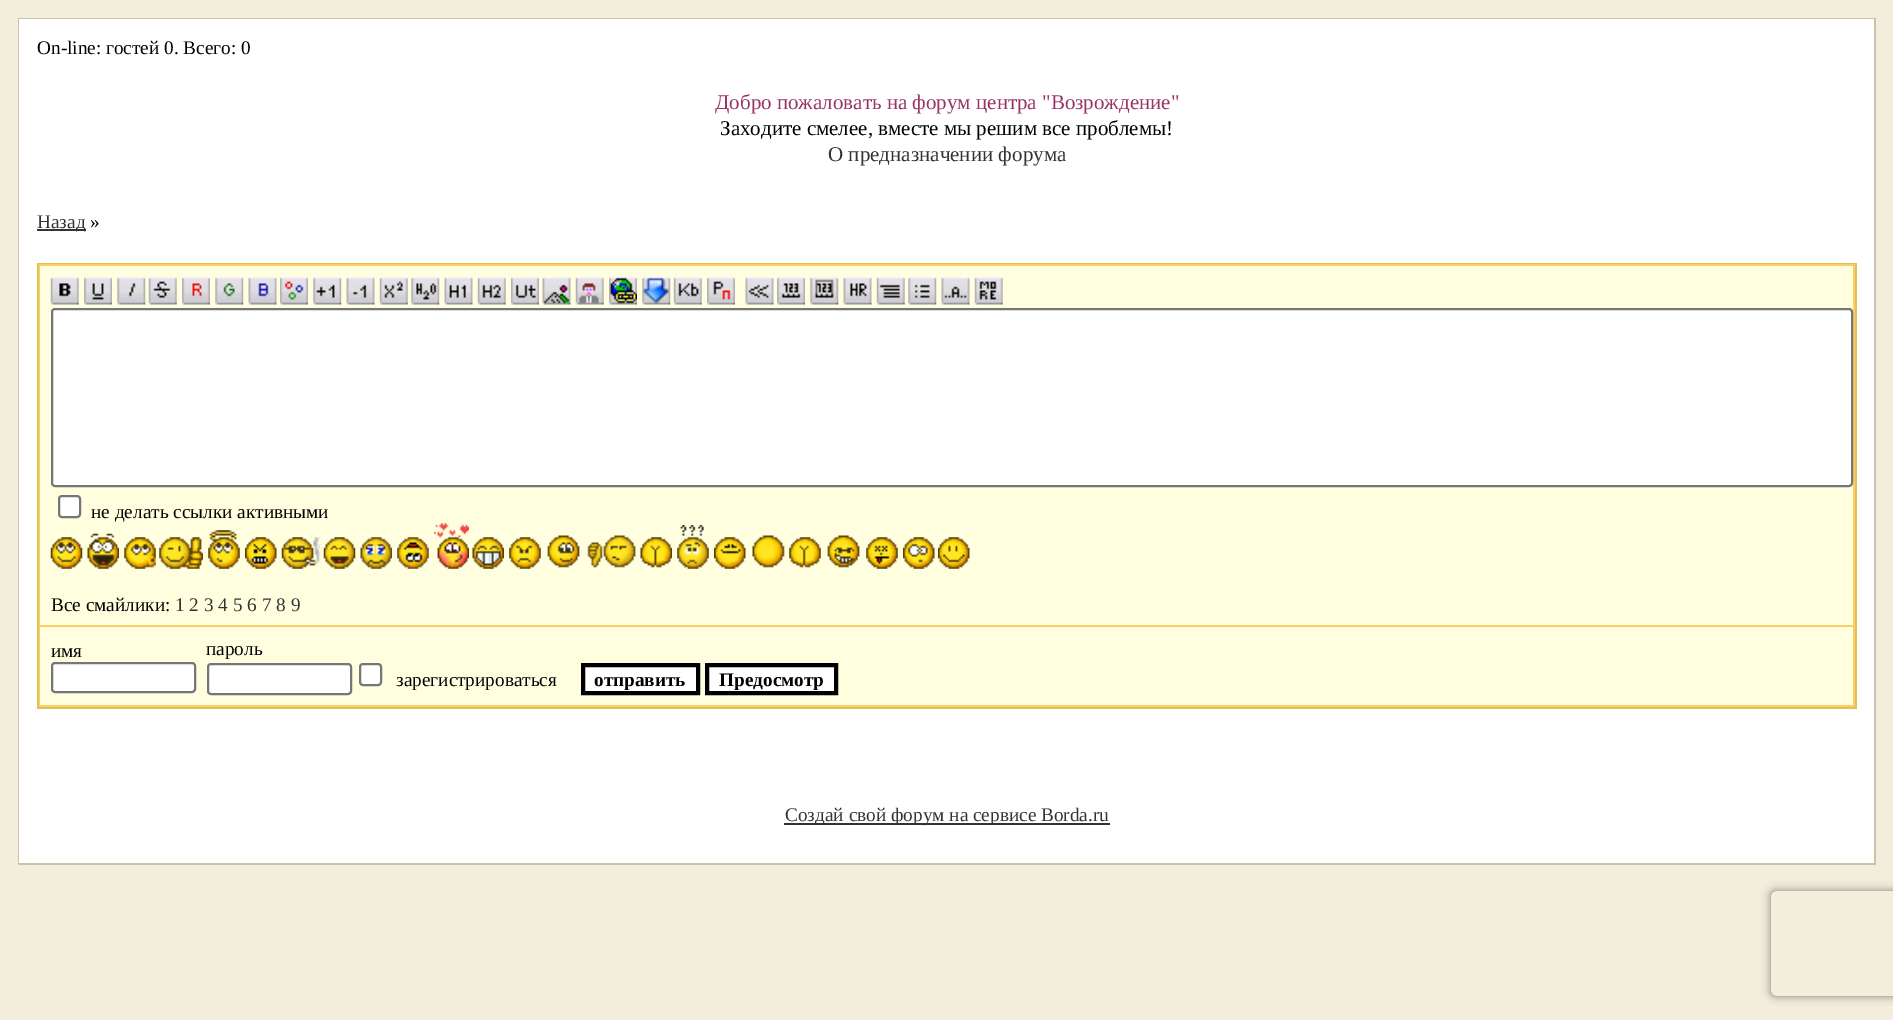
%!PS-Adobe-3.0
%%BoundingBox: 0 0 1893 1020
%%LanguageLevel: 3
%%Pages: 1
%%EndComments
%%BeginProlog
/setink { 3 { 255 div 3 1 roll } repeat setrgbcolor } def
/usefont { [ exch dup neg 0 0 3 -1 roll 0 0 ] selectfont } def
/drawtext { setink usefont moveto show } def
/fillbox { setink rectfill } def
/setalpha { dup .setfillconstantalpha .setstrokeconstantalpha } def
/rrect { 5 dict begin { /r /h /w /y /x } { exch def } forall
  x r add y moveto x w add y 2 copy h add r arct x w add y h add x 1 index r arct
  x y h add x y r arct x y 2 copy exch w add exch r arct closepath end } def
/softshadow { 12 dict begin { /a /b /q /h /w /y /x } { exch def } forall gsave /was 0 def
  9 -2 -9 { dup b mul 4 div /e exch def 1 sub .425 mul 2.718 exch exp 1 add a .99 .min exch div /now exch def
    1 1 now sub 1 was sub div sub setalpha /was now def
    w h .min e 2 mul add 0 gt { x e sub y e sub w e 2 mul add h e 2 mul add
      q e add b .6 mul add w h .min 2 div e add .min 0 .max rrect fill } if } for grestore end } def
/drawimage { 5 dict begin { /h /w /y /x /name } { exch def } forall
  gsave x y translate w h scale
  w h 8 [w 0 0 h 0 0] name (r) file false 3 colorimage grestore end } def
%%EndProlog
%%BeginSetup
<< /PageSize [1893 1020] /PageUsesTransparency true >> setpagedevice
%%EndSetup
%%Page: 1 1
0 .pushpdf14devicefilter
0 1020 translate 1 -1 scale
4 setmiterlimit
0 0 1893 1020 243 237 219 fillbox
18 18 1858 847 204 194 168 fillbox
19 19 1855 844 255 255 255 fillbox
(On-line: гостей 0. Всего: 0) 37 54 /LiberationSerif-Regular 19.25 0 0 0 drawtext
(Добро пожаловать на форум центра "Возрождение") 715 109 /LiberationSerif-Regular 21 153 51 102 drawtext
(Заходите смелее, вместе мы решим все проблемы!) 720 135 /LiberationSerif-Regular 21 0 0 0 drawtext
(О предназначении форума) 828 161 /LiberationSerif-Regular 21 51 51 51 drawtext
37 229 49 2 51 51 51 fillbox
(Назад) 37 228 /LiberationSerif-Regular 19.25 51 51 51 drawtext
(») 90 228 /LiberationSerif-Regular 19.25 0 0 0 drawtext
37 263 1820 446 222 195 90 fillbox
39 264 1816 443 255 204 102 fillbox
40 266 1813 359 255 255 224 fillbox
(assets/img1.rgb) 50 276 29 29 drawimage
(assets/img2.rgb) 84 276 28 29 drawimage
(assets/img3.rgb) 117 276 29 29 drawimage
(assets/img4.rgb) 148 276 29 29 drawimage
(assets/img5.rgb) 182 276 28 29 drawimage
(assets/img6.rgb) 215 276 29 29 drawimage
(assets/img7.rgb) 248 276 29 29 drawimage
(assets/img8.rgb) 280 276 28 29 drawimage
(assets/img9.rgb) 313 276 29 29 drawimage
(assets/img10.rgb) 346 276 29 29 drawimage
(assets/img11.rgb) 379 276 29 29 drawimage
(assets/img12.rgb) 411 276 29 29 drawimage
(assets/img13.rgb) 444 276 29 29 drawimage
(assets/img14.rgb) 477 276 29 29 drawimage
(assets/img15.rgb) 511 276 28 29 drawimage
(assets/img16.rgb) 542 276 29 29 drawimage
(assets/img17.rgb) 575 276 29 29 drawimage
(assets/img18.rgb) 609 276 28 29 drawimage
(assets/img19.rgb) 642 276 29 29 drawimage
(assets/img20.rgb) 673 276 29 29 drawimage
(assets/img21.rgb) 707 276 28 29 drawimage
(assets/img22.rgb) 745 276 29 29 drawimage
(assets/img23.rgb) 777 276 28 29 drawimage
(assets/img24.rgb) 810 276 29 29 drawimage
(assets/img25.rgb) 843 276 29 29 drawimage
(assets/img26.rgb) 876 276 29 29 drawimage
(assets/img27.rgb) 908 276 29 29 drawimage
(assets/img28.rgb) 941 276 29 29 drawimage
(assets/img29.rgb) 974 276 29 29 drawimage
255 255 255 setink
52 309 1800 177 3 rrect gsave fill grestore
118 118 118 setink
2 setlinewidth
stroke
255 255 255 setink
59 496 21 21 3 rrect gsave fill grestore
118 118 118 setink
stroke
(не делать ссылки активными) 91 518 /LiberationSerif-Regular 19.25 0 0 0 drawtext
(assets/img30.rgb) 50 537 33 32 drawimage
(assets/img31.rgb) 87 533 32 36 drawimage
(assets/img32.rgb) 124 537 32 32 drawimage
(assets/img33.rgb) 159 537 44 32 drawimage
(assets/img34.rgb) 208 530 32 39 drawimage
(assets/img35.rgb) 245 537 32 32 drawimage
(assets/img36.rgb) 281 537 40 32 drawimage
(assets/img37.rgb) 323 537 33 32 drawimage
(assets/img38.rgb) 360 537 32 32 drawimage
(assets/img39.rgb) 397 537 32 32 drawimage
(assets/img40.rgb) 434 523 35 46 drawimage
(assets/img41.rgb) 472 537 32 32 drawimage
(assets/img42.rgb) 509 537 32 32 drawimage
(assets/img43.rgb) 547 535 33 33 drawimage
(assets/img44.rgb) 587 535 49 33 drawimage
(assets/img45.rgb) 640 537 32 31 drawimage
(assets/img46.rgb) 677 525 32 44 drawimage
(assets/img47.rgb) 714 537 32 32 drawimage
(assets/img48.rgb) 752 535 33 33 drawimage
(assets/img49.rgb) 789 537 32 31 drawimage
(assets/img50.rgb) 827 535 33 33 drawimage
(assets/img51.rgb) 866 537 32 32 drawimage
(assets/img52.rgb) 903 537 32 32 drawimage
(assets/img53.rgb) 938 537 32 32 drawimage
(Все смайлики:) 51 611 /LiberationSerif-Regular 19.25 0 0 0 drawtext
(1 2 3 4 5 6 7 8 9) 175 611 /LiberationSerif-Regular 19.25 51 51 51 drawtext
40 627 1813 78 255 255 224 fillbox
(имя) 51 657 /LiberationSerif-Regular 19.25 0 0 0 drawtext
255 255 255 setink
52 663 143 29 3 rrect gsave fill grestore
118 118 118 setink
stroke
(пароль) 206 655 /LiberationSerif-Regular 19.25 0 0 0 drawtext
255 255 255 setink
208 664 143 30 3 rrect gsave fill grestore
118 118 118 setink
stroke
255 255 255 setink
360 664 21 21 3 rrect gsave fill grestore
118 118 118 setink
stroke
(зарегистрироваться) 396 686 /LiberationSerif-Regular 19.25 0 0 0 drawtext
255 255 255 setink
583 665 moveto 698 665 lineto 698 693 lineto 583 693 lineto closepath gsave fill grestore
0 0 0 setink
4 setlinewidth
stroke
(отправить) 594 686 /LiberationSerif-Bold 19.25 0 0 0 drawtext
255 255 255 setink
707 665 moveto 836 665 lineto 836 693 lineto 707 693 lineto closepath gsave fill grestore
0 0 0 setink
stroke
(Предосмотр) 719 686 /LiberationSerif-Bold 19.25 0 0 0 drawtext
784 823 326 2 51 51 51 fillbox
(Создай свой форум на сервисе Borda.ru) 785 821 /LiberationSerif-Regular 19.25 51 51 51 drawtext
gsave
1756 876 moveto 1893 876 lineto 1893 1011 lineto 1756 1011 lineto closepath 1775 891 moveto 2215 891 lineto 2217 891 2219 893 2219 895 curveto 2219 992 lineto 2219 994 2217 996 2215 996 curveto 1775 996 lineto 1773 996 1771 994 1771 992 curveto 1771 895 lineto 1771 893 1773 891 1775 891 curveto closepath eoclip newpath
128 128 128 setink
1771 891 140 105 4 4.5 1 softshadow
grestore
.poppdf14devicefilter showpage
%%EOF
